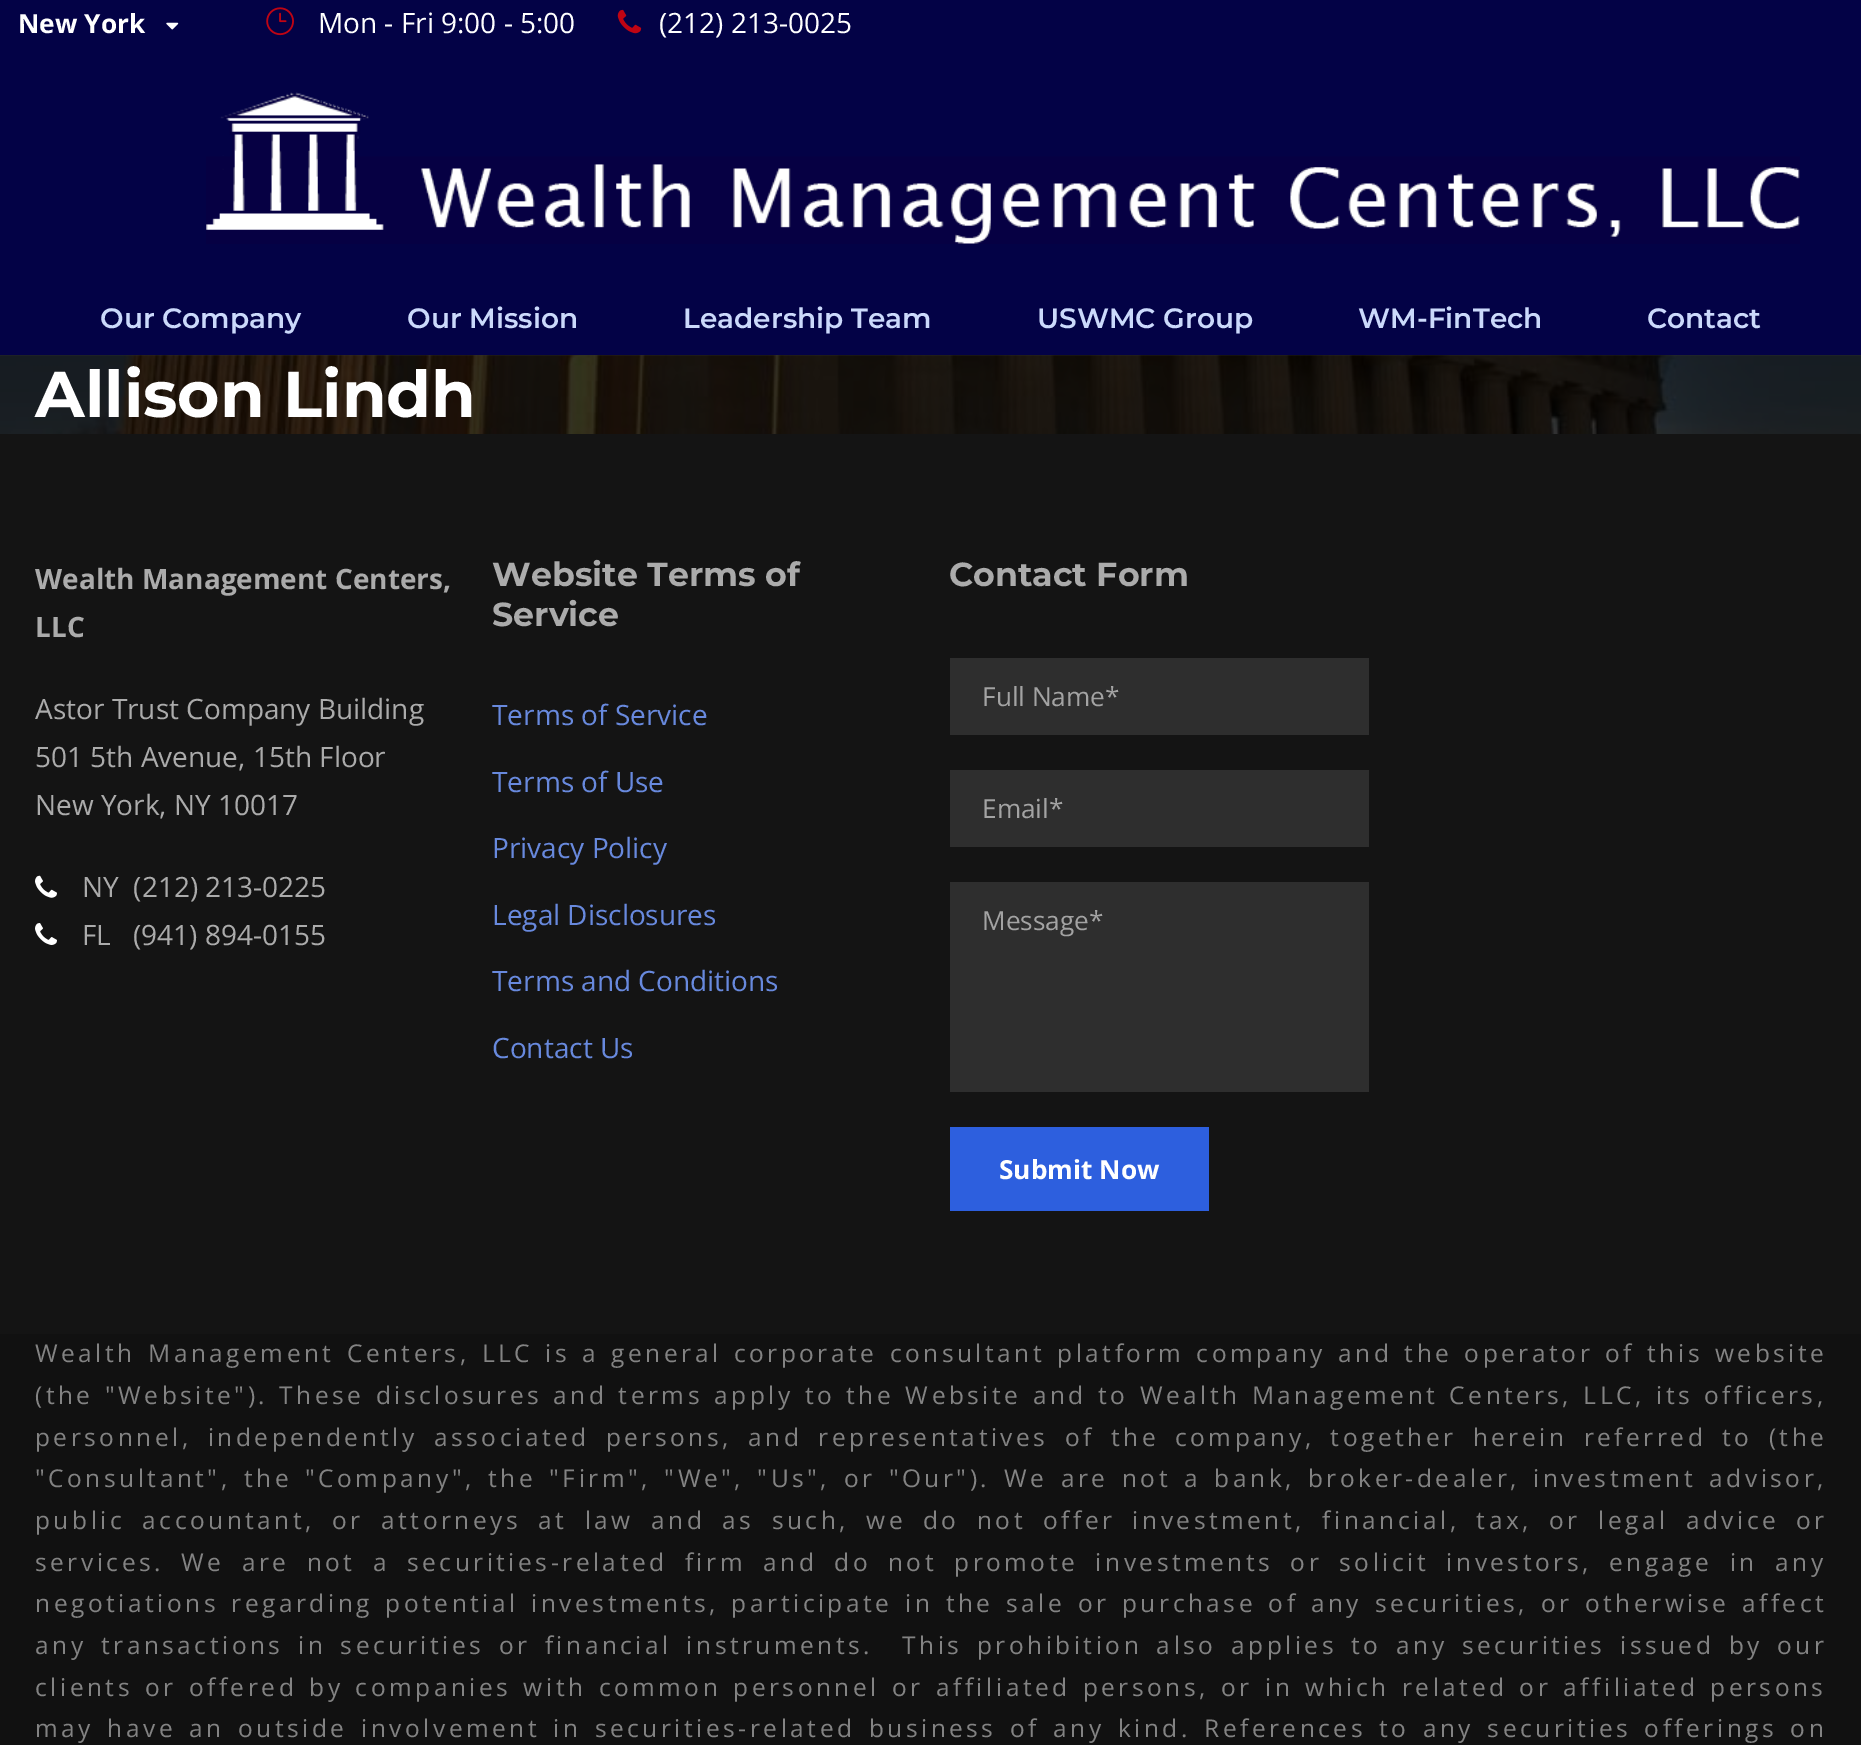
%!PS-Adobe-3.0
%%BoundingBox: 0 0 1861 1745
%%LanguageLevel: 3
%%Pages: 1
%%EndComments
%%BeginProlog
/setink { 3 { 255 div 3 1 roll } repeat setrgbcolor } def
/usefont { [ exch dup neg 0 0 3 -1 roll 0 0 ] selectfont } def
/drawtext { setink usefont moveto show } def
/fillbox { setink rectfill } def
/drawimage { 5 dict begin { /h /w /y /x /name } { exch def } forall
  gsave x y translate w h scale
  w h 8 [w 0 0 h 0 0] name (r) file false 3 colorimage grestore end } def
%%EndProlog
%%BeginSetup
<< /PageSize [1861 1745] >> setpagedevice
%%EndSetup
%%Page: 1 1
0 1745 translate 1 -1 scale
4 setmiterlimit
0 0 1861 1745 255 255 255 fillbox
0 0 1861 355 3 2 70 fillbox
(New York) 18 33 /OpenSans-Bold 26.25 255 255 255 drawtext
(assets/img1.rgb) 166 22 13 8 drawimage
(assets/img2.rgb) 266 7 28 29 drawimage
(Mon - Fri 9:00 - 5:00) 318 33 /OpenSans-Regular 28 255 255 255 drawtext
(assets/img3.rgb) 617 9 25 25 drawimage
(\(212\) 213-0025) 659 33 /OpenSans-Regular 28 255 255 255 drawtext
(assets/img4.rgb) 206 92 1594 152 drawimage
(Our Company) 100 328 /Montserrat-SemiBold 28 203 217 251 drawtext
(Our Mission) 407 328 /Montserrat-SemiBold 28 203 217 251 drawtext
(Leadership Team) 683 328 /Montserrat-SemiBold 28 203 217 251 drawtext
(USWMC Group) 1037 328 /Montserrat-SemiBold 28 203 217 251 drawtext
(WM-FinTech) 1358 328 /Montserrat-SemiBold 28 203 217 251 drawtext
(Contact) 1647 328 /Montserrat-SemiBold 28 203 217 251 drawtext
(assets/img5.rgb) 0 355 1861 79 drawimage
(Allison Lindh) 35 417 /Montserrat-Bold 64.75 255 255 255 drawtext
0 434 1861 900 20 20 20 fillbox
(Wealth Management Centers,) 35 589 /OpenSans-Bold 28 171 171 171 drawtext
(LLC) 35 637 /OpenSans-Bold 28 171 171 171 drawtext
(Astor Trust Company Building) 35 719 /OpenSans-Regular 28 171 171 171 drawtext
(501 5th Avenue, 15th Floor) 35 767 /OpenSans-Regular 28 171 171 171 drawtext
(New York, NY 10017) 35 815 /OpenSans-Regular 28 171 171 171 drawtext
(assets/img6.rgb) 35 875 22 23 drawimage
(NY  \(212\) 213-0225) 82 897 /OpenSans-Regular 28 171 171 171 drawtext
(assets/img7.rgb) 35 923 22 22 drawimage
(FL   \(941\) 894-0155) 82 945 /OpenSans-Regular 28 171 171 171 drawtext
(Website Terms of) 492 586 /Montserrat-Bold 33.25 171 171 171 drawtext
(Service) 492 626 /Montserrat-Bold 33.25 171 171 171 drawtext
(Terms of Service) 492 725 /OpenSans-Regular 28 104 137 221 drawtext
(Terms of Use) 492 792 /OpenSans-Regular 28 104 137 221 drawtext
(Privacy Policy) 492 858 /OpenSans-Regular 28 104 137 221 drawtext
(Legal Disclosures) 492 925 /OpenSans-Regular 28 104 137 221 drawtext
(Terms and Conditions) 492 991 /OpenSans-Regular 28 104 137 221 drawtext
(Contact Us) 492 1058 /OpenSans-Regular 28 104 137 221 drawtext
(Contact Form) 949 586 /Montserrat-Bold 33.25 171 171 171 drawtext
950 658 419 77 46 46 46 fillbox
(Full Name*) 982 706 /OpenSans-Regular 26.25 163 163 163 drawtext
950 770 419 77 46 46 46 fillbox
(Email*) 982 818 /OpenSans-Regular 26.25 163 163 163 drawtext
950 882 419 210 46 46 46 fillbox
(Message*) 982 930 /OpenSans-Regular 26.25 163 163 163 drawtext
950 1127 259 84 45 95 222 fillbox
(Submit Now) 999 1179 /OpenSans-Bold 26.25 255 255 255 drawtext
0 1334 1861 411 17 17 17 fillbox
/OpenSans-Regular 24.5 usefont
131 131 131 setink
35 1362 moveto 2.25 0 32 3.5 0 (Wealth Management Centers, LLC is a general corporate consultant platform company and the operator of this website) awidthshow
35 1404 moveto 1.3 0 32 3.5 0 (\(the "Website"\). These disclosures and terms apply to the Website and to Wealth Management Centers, LLC, its officers,) awidthshow
35 1446 moveto 6.25 0 32 3.5 0 (personnel, independently associated persons, and representatives of the company, together herein referred to \(the) awidthshow
35 1487 moveto 3.4 0 32 3.5 0 ("Consultant", the "Company", the "Firm", "We", "Us", or "Our"\).) awidthshow
1004 1487 moveto 3.4 0 32 3.5 0 (We are not a bank, broker-dealer, investment advisor,) awidthshow
35 1529 moveto 7.25 0 32 3.5 0 (public accountant, or attorneys at law and as such, we do not offer investment, financial, tax, or legal advice or) awidthshow
35 1571 moveto 7.25 0 32 3.5 0 (services. We are not a securities-related firm and do not promote investments or solicit investors, engage in any) awidthshow
35 1612 moveto 2.6 0 32 3.5 0 (negotiations regarding potential investments, participate in the sale or purchase of any securities, or otherwise affect) awidthshow
35 1654 moveto 4.5 0 32 3.5 0 (any transactions in securities or financial instruments.  This prohibition also applies to any securities issued by our) awidthshow
35 1696 moveto 2.25 0 32 3.5 0 (clients or offered by companies with common personnel or affiliated persons, or in which related or affiliated persons) awidthshow
35 1737 moveto 3.4 0 32 3.5 0 (may have an outside involvement in securities-related business of any kind.) awidthshow
1204 1737 moveto 3.4 0 32 3.5 0 (References to any securities offerings on) awidthshow
showpage
%%EOF
